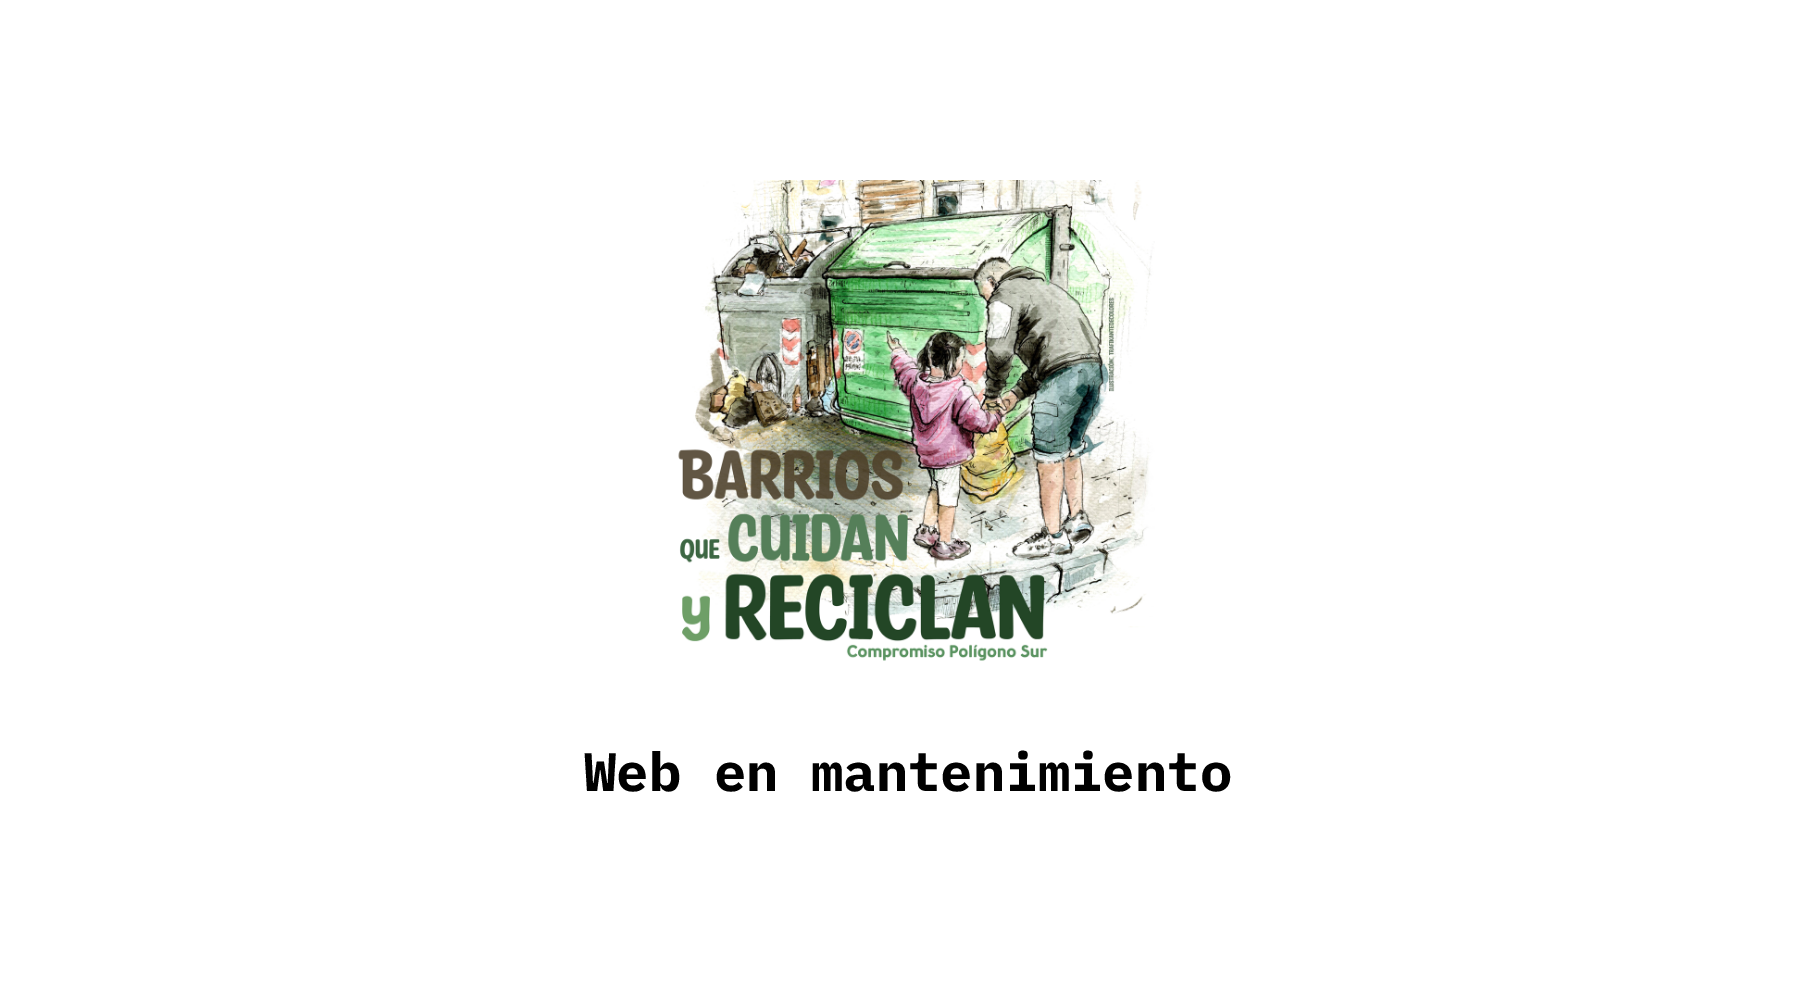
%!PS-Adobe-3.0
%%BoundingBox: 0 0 1815 996
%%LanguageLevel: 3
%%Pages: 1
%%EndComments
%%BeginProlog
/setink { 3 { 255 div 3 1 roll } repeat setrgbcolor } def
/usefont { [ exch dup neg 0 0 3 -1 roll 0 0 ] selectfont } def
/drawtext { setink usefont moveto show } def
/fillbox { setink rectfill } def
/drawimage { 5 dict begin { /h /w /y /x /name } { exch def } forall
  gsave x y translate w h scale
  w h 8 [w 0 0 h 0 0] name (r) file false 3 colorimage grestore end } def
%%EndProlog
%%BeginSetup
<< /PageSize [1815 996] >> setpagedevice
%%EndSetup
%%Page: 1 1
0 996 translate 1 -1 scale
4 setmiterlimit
0 0 1815 996 255 255 255 fillbox
(assets/img1.rgb) 678 180 477 481 drawimage
(Web en mantenimiento) 584 791 /IBMPlexMono-Bold 54 0 0 0 drawtext
showpage
%%EOF
